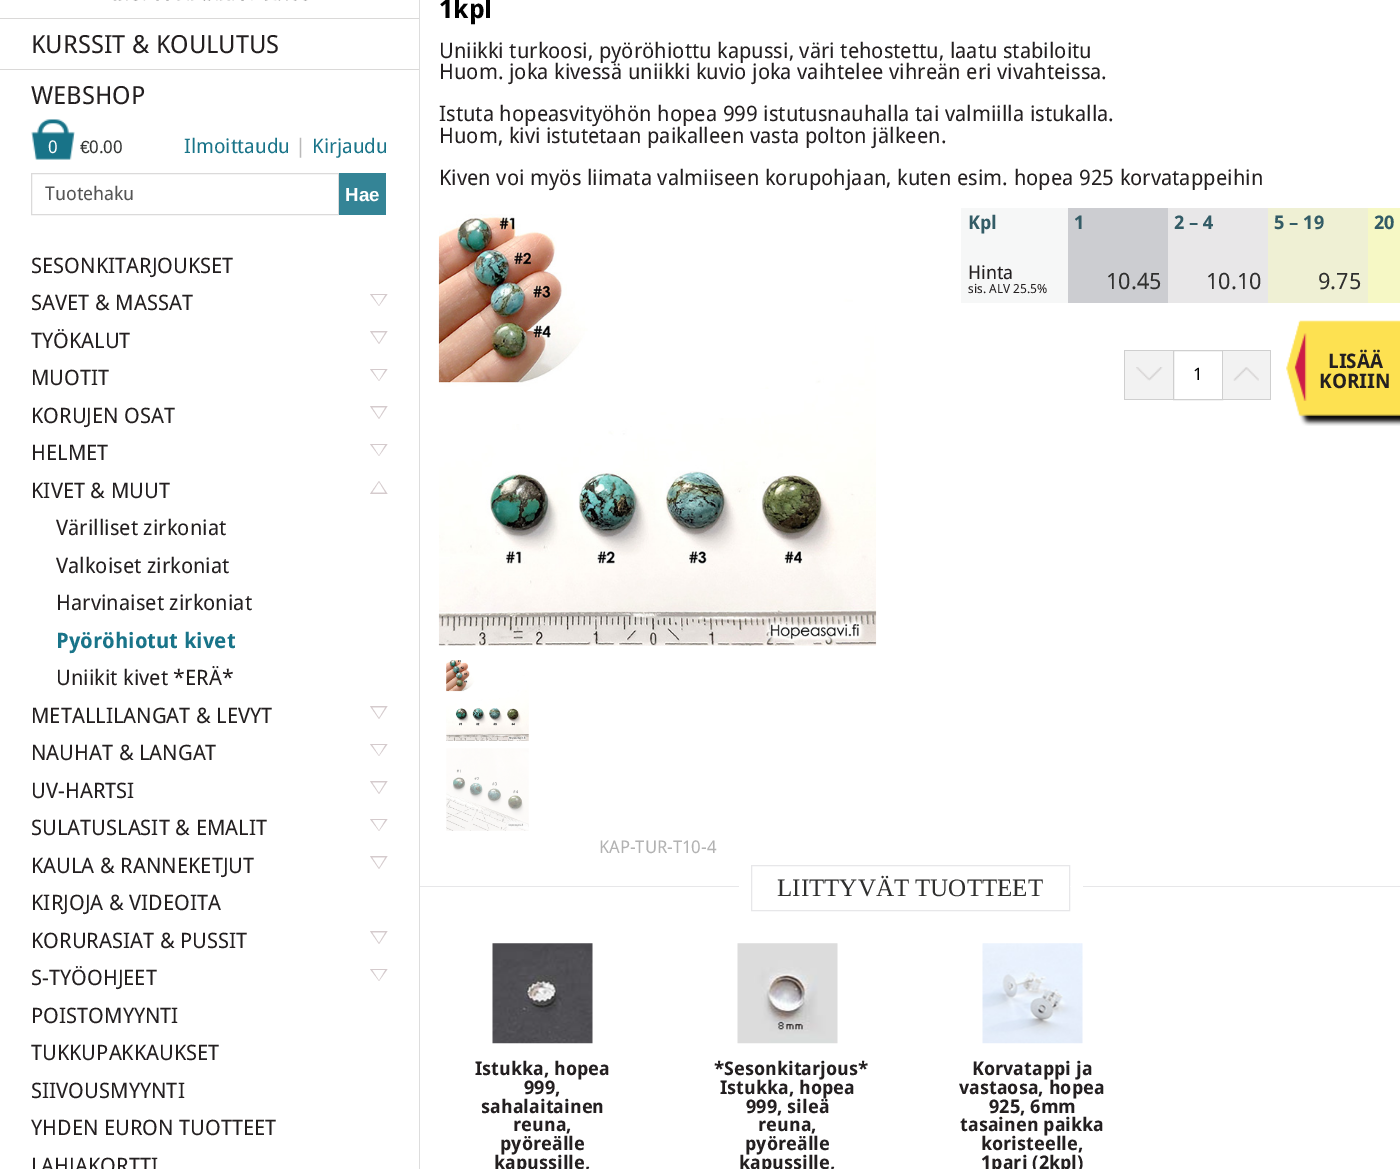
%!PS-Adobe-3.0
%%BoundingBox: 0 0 1400 1169
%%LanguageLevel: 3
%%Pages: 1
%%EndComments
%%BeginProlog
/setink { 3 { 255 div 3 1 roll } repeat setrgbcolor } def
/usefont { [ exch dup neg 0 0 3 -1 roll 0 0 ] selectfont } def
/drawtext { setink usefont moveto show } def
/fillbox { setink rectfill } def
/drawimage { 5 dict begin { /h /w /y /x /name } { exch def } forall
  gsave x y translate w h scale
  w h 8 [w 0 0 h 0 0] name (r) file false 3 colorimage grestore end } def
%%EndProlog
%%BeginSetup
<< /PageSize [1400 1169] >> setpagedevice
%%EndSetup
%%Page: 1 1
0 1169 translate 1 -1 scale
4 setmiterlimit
0 0 1400 1169 255 255 255 fillbox
(assets/img1.rgb) 113 0 195 1 drawimage
0 18 419 1 218 217 216 fillbox
0 69 419 1 218 217 216 fillbox
(KURSSIT & KOULUTUS) 31 53 /DroidSans-Regular 25 35 31 32 drawtext
(WEBSHOP) 31 104 /DroidSans-Regular 25 35 31 32 drawtext
(assets/img2.rgb) 31 119 44 41 drawimage
(0) 48 153 /DroidSans-Regular 17.5 255 255 255 drawtext
(€) 80 153 /LiberationSans-Regular 17.5 52 53 51 drawtext
(0.00) 89 153 /DroidSans-Regular 17.5 52 53 51 drawtext
(Ilmoittaudu) 184 153 /DroidSans-Regular 20 25 116 137 drawtext
(|) 295 153 /DroidSans-Regular 20 186 185 185 drawtext
(Kirjaudu) 312 153 /DroidSans-Regular 20 25 116 137 drawtext
219 218 218 setink
31.5 173.5 307 41 rectstroke
(Tuotehaku) 45 200 /DroidSans-Regular 18.75 85 85 85 drawtext
339 173 47 42 52 132 150 fillbox
(Hae) 345 201 /LiberationSans-Bold 18.75 255 255 255 drawtext
(SESONKITARJOUKSET) 31 273 /DroidSans-Regular 21.25 35 31 32 drawtext
(SAVET & MASSAT) 31 310 /DroidSans-Regular 21.25 35 31 32 drawtext
213 203 205 setink
370 294 moveto 387.5 294 lineto 379 306 lineto closepath fill
255 255 255 setink
372.5 295 moveto 385 295 lineto 379 305 lineto closepath fill
(TYÖKALUT) 31 348 /DroidSans-Regular 21.25 35 31 32 drawtext
213 203 205 setink
370 331 moveto 387.5 331 lineto 379 344 lineto closepath fill
255 255 255 setink
372.5 332.5 moveto 385 332.5 lineto 379 342.5 lineto closepath fill
(MUOTIT) 31 385 /DroidSans-Regular 21.25 35 31 32 drawtext
213 203 205 setink
370 369 moveto 387.5 369 lineto 379 381 lineto closepath fill
255 255 255 setink
372.5 370 moveto 385 370 lineto 379 380 lineto closepath fill
(KORUJEN OSAT) 31 423 /DroidSans-Regular 21.25 35 31 32 drawtext
213 203 205 setink
370 406 moveto 387.5 406 lineto 379 419 lineto closepath fill
255 255 255 setink
372.5 407.5 moveto 385 407.5 lineto 379 417.5 lineto closepath fill
(HELMET) 31 460 /DroidSans-Regular 21.25 35 31 32 drawtext
213 203 205 setink
370 444 moveto 387.5 444 lineto 379 456 lineto closepath fill
255 255 255 setink
372.5 445 moveto 385 445 lineto 379 455 lineto closepath fill
(KIVET & MUUT) 31 498 /DroidSans-Regular 21.25 35 31 32 drawtext
213 203 205 setink
387.5 494 moveto 370 494 lineto 379 481 lineto closepath fill
255 255 255 setink
385 492.5 moveto 372.5 492.5 lineto 379 482.5 lineto closepath fill
(Värilliset zirkoniat) 56 535 /DroidSans-Regular 21.25 35 31 32 drawtext
(Valkoiset zirkoniat) 56 573 /DroidSans-Regular 21.25 35 31 32 drawtext
(Harvinaiset zirkoniat) 56 610 /DroidSans-Regular 21.25 35 31 32 drawtext
(Pyöröhiotut kivet) 56 648 /DroidSans-Bold 21.25 25 116 137 drawtext
(Uniikit kivet *ERÄ*) 56 685 /DroidSans-Regular 21.25 35 31 32 drawtext
(METALLILANGAT & LEVYT) 31 723 /DroidSans-Regular 21.25 35 31 32 drawtext
213 203 205 setink
370 706 moveto 387.5 706 lineto 379 719 lineto closepath fill
255 255 255 setink
372.5 707.5 moveto 385 707.5 lineto 379 717.5 lineto closepath fill
(NAUHAT & LANGAT) 31 760 /DroidSans-Regular 21.25 35 31 32 drawtext
213 203 205 setink
370 744 moveto 387.5 744 lineto 379 756 lineto closepath fill
255 255 255 setink
372.5 745 moveto 385 745 lineto 379 755 lineto closepath fill
(UV-HARTSI) 31 798 /DroidSans-Regular 21.25 35 31 32 drawtext
213 203 205 setink
370 781 moveto 387.5 781 lineto 379 794 lineto closepath fill
255 255 255 setink
372.5 782.5 moveto 385 782.5 lineto 379 792.5 lineto closepath fill
(SULATUSLASIT & EMALIT) 31 835 /DroidSans-Regular 21.25 35 31 32 drawtext
213 203 205 setink
370 819 moveto 387.5 819 lineto 379 831 lineto closepath fill
255 255 255 setink
372.5 820 moveto 385 820 lineto 379 830 lineto closepath fill
(KAULA & RANNEKETJUT) 31 873 /DroidSans-Regular 21.25 35 31 32 drawtext
213 203 205 setink
370 856 moveto 387.5 856 lineto 379 869 lineto closepath fill
255 255 255 setink
372.5 857.5 moveto 385 857.5 lineto 379 867.5 lineto closepath fill
(KIRJOJA & VIDEOITA) 31 910 /DroidSans-Regular 21.25 35 31 32 drawtext
(KORURASIAT & PUSSIT) 31 948 /DroidSans-Regular 21.25 35 31 32 drawtext
213 203 205 setink
370 931 moveto 387.5 931 lineto 379 944 lineto closepath fill
255 255 255 setink
372.5 932.5 moveto 385 932.5 lineto 379 942.5 lineto closepath fill
(S-TYÖOHJEET) 31 985 /DroidSans-Regular 21.25 35 31 32 drawtext
213 203 205 setink
370 969 moveto 387.5 969 lineto 379 981 lineto closepath fill
255 255 255 setink
372.5 970 moveto 385 970 lineto 379 980 lineto closepath fill
(POISTOMYYNTI) 31 1023 /DroidSans-Regular 21.25 35 31 32 drawtext
(TUKKUPAKKAUKSET) 31 1060 /DroidSans-Regular 21.25 35 31 32 drawtext
(SIIVOUSMYYNTI) 31 1098 /DroidSans-Regular 21.25 35 31 32 drawtext
(YHDEN EURON TUOTTEET) 31 1135 /DroidSans-Regular 21.25 35 31 32 drawtext
(LAHJAKORTTI) 31 1173 /DroidSans-Regular 21.25 35 31 32 drawtext
419 0 1 1169 221 221 221 fillbox
(1kpl) 439 18 /DroidSans-Bold 26 1 1 1 drawtext
(Uniikki turkoosi, pyöröhiottu kapussi, väri tehostettu, laatu stabiloitu) 439 58 /DroidSans-Regular 21.25 35 31 32 drawtext
(Huom. joka kivessä uniikki kuvio joka vaihtelee vihreän eri vivahteissa.) 439 79 /DroidSans-Regular 21.25 35 31 32 drawtext
(Istuta hopeasvityöhön hopea 999 istutusnauhalla tai valmiilla istukalla.) 439 121 /DroidSans-Regular 21.25 35 31 32 drawtext
(Huom, kivi istutetaan paikalleen vasta polton jälkeen.) 439 143 /DroidSans-Regular 21.25 35 31 32 drawtext
(Kiven voi myös liimata valmiiseen korupohjaan, kuten esim. hopea 925 korvatappeihin) 439 185 /DroidSans-Regular 21.25 35 31 32 drawtext
961 208 107 95 246 247 247 fillbox
(Kpl) 968 229 /DroidSans-Bold 18.75 51 92 102 drawtext
(Hinta) 968 279 /DroidSans-Regular 18.75 35 31 32 drawtext
(sis. ALV 25.5%) 968 293 /DroidSans-Regular 12.5 35 31 32 drawtext
1068 208 100 95 204 205 209 fillbox
(1) 1074 229 /DroidSans-Bold 18.75 51 92 102 drawtext
(10.45) 1106 289 /DroidSans-Regular 22.5 47 47 46 drawtext
1168 208 100 95 232 231 232 fillbox
(2 – 4) 1174 229 /DroidSans-Bold 18.75 51 92 102 drawtext
(10.10) 1206 289 /DroidSans-Regular 22.5 47 47 46 drawtext
1268 208 100 95 239 240 212 fillbox
(5 – 19) 1274 229 /DroidSans-Bold 18.75 51 92 102 drawtext
(9.75) 1318 289 /DroidSans-Regular 22.5 47 47 46 drawtext
1368 208 32 95 246 248 197 fillbox
(20) 1374 229 /DroidSans-Bold 18.75 51 92 102 drawtext
1125 351 48 48 242 242 242 fillbox
(assets/img3.rgb) 1136 367 27 14 drawimage
1124 350 49 1 207 207 207 fillbox
1124 399 49 1 207 207 207 fillbox
1124 350 1 50 207 207 207 fillbox
1173.5 350.5 49 49 rectstroke
(1) 1193 380 /DroidSans-Regular 17 1 1 1 drawtext
1223 351 47 48 242 242 242 fillbox
(assets/img4.rgb) 1233 367 26 14 drawimage
1223 350 48 1 207 207 207 fillbox
1270 350 1 50 207 207 207 fillbox
1223 399 48 1 207 207 207 fillbox
(assets/img5.rgb) 1286 320 114 106 drawimage
(LISÄÄ) 1328 368 /DroidSans-Bold 20 35 31 32 drawtext
(KORIIN) 1319 388 /DroidSans-Bold 20 35 31 32 drawtext
(assets/img6.rgb) 438 214 439 432 drawimage
(assets/img7.rgb) 446 660 83 81 drawimage
(assets/img8.rgb) 446 748 83 83 drawimage
(KAP-TUR-T10-4) 599 853 /DroidSans-Regular 17.5 178 178 178 drawtext
420 886 980 1 231 231 233 fillbox
752 886 317 1 255 255 255 fillbox
231 231 233 setink
751.5 865.5 318 45 rectstroke
739 886 12 1 255 255 255 fillbox
(LIITTYVÄT TUOTTEET) 777 896 /LiberationSerif-Regular 25 47 47 46 drawtext
1070 886 13 1 255 255 255 fillbox
(assets/img9.rgb) 492 943 101 101 drawimage
(Istukka, hopea) 475 1075 /DroidSans-Bold 18.75 35 31 32 drawtext
(999,) 524 1094 /DroidSans-Bold 18.75 35 31 32 drawtext
(sahalaitainen) 481 1113 /DroidSans-Bold 18.75 35 31 32 drawtext
(reuna,) 513 1131 /DroidSans-Bold 18.75 35 31 32 drawtext
(pyöreälle) 500 1150 /DroidSans-Bold 18.75 35 31 32 drawtext
(kapussille,) 494 1169 /DroidSans-Bold 18.75 35 31 32 drawtext
(assets/img10.rgb) 737 943 101 101 drawimage
(*Sesonkitarjous*) 714 1075 /DroidSans-Bold 18.75 35 31 32 drawtext
(Istukka, hopea) 720 1094 /DroidSans-Bold 18.75 35 31 32 drawtext
(999, sileä) 746 1113 /DroidSans-Bold 18.75 35 31 32 drawtext
(reuna,) 758 1131 /DroidSans-Bold 18.75 35 31 32 drawtext
(pyöreälle) 745 1150 /DroidSans-Bold 18.75 35 31 32 drawtext
(kapussille,) 739 1169 /DroidSans-Bold 18.75 35 31 32 drawtext
(assets/img11.rgb) 982 943 101 101 drawimage
(Korvatappi ja) 972 1075 /DroidSans-Bold 18.75 35 31 32 drawtext
(vastaosa, hopea) 959 1094 /DroidSans-Bold 18.75 35 31 32 drawtext
(925, 6mm) 989 1113 /DroidSans-Bold 18.75 35 31 32 drawtext
(tasainen paikka) 960 1131 /DroidSans-Bold 18.75 35 31 32 drawtext
(koristeelle,) 981 1150 /DroidSans-Bold 18.75 35 31 32 drawtext
(1pari \(2kpl\)) 981 1169 /DroidSans-Bold 18.75 35 31 32 drawtext
showpage
%%EOF
